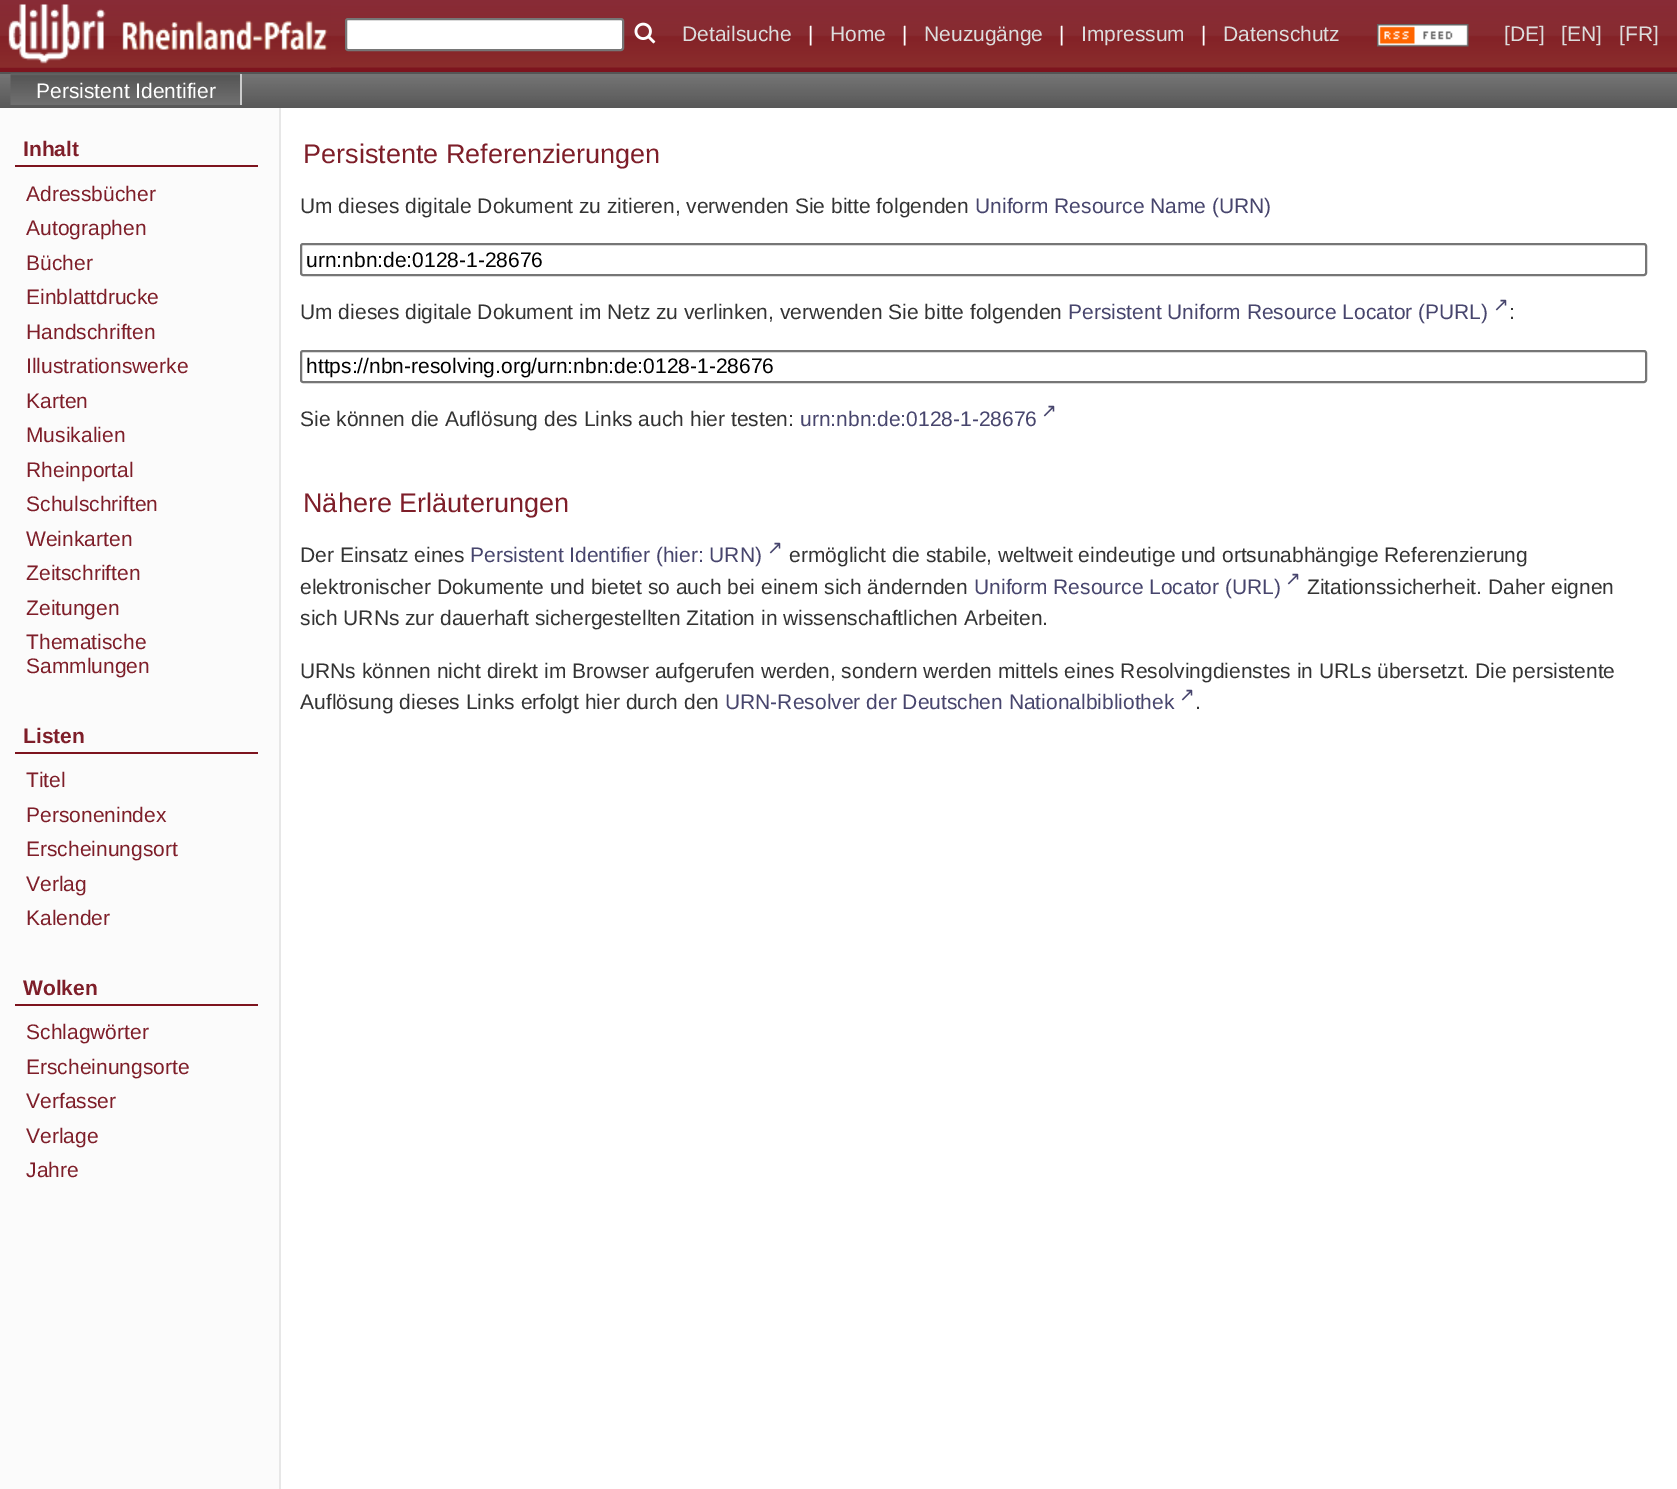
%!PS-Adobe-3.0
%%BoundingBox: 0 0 1677 1489
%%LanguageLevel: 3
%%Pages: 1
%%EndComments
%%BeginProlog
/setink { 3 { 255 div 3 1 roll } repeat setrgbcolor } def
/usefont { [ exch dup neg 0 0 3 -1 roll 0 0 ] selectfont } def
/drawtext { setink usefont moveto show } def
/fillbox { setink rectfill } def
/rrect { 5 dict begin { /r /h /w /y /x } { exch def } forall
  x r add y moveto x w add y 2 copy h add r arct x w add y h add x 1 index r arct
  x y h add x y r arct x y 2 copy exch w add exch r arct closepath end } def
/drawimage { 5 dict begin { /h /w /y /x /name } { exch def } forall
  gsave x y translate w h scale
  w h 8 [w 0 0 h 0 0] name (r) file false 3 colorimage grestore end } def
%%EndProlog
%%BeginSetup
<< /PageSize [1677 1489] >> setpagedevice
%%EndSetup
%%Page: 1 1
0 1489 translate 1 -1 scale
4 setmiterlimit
0 0 1677 1489 255 255 255 fillbox
0 67 1677 5 125 20 30 fillbox
(assets/img1.rgb) 0 0 1677 68 drawimage
(assets/img2.rgb) 0 4 331 64 drawimage
255 255 255 setink
346 19 277 31 2 rrect gsave fill grestore
118 118 118 setink
2 setlinewidth
stroke
(assets/img3.rgb) 634 22 22 22 drawimage
(Detailsuche) 682 41 /LiberationSans-Regular 21 221 221 221 drawtext
(|) 808 41 /LiberationSans-Regular 21 255 255 255 drawtext
(Home) 830 41 /LiberationSans-Regular 21 221 221 221 drawtext
(|) 902 41 /LiberationSans-Regular 21 255 255 255 drawtext
(Neuzugänge) 924 41 /LiberationSans-Regular 21 221 221 221 drawtext
(|) 1059 41 /LiberationSans-Regular 21 255 255 255 drawtext
(Impressum) 1081 41 /LiberationSans-Regular 21 221 221 221 drawtext
(|) 1201 41 /LiberationSans-Regular 21 255 255 255 drawtext
(Datenschutz) 1223 41 /LiberationSans-Regular 21 221 221 221 drawtext
(assets/img4.rgb) 1377 24 92 23 drawimage
([DE]) 1504 41 /LiberationSans-Regular 21 221 221 221 drawtext
([EN]) 1561 41 /LiberationSans-Regular 21 221 221 221 drawtext
([FR]) 1619 41 /LiberationSans-Regular 21 221 221 221 drawtext
(assets/img5.rgb) 0 74 1677 34 drawimage
0 72 1677 2 85 85 85 fillbox
(assets/img6.rgb) 10 73 232 32 drawimage
240 74 2 31 204 204 204 fillbox
(Persistent Identifier) 36 98 /LiberationSans-Regular 21 255 255 255 drawtext
0 108 279 1381 251 251 251 fillbox
279 108 2 1381 231 231 231 fillbox
15 165 243 2 125 20 30 fillbox
(Inhalt) 23 156 /LiberationSans-Bold 21 126 30 41 drawtext
(Adressbücher) 26 201 /LiberationSans-Regular 21 126 30 41 drawtext
(Autographen) 26 235 /LiberationSans-Regular 21 126 30 41 drawtext
(Bücher) 26 270 /LiberationSans-Regular 21 126 30 41 drawtext
(Einblattdrucke) 26 304 /LiberationSans-Regular 21 126 30 41 drawtext
(Handschriften) 26 339 /LiberationSans-Regular 21 126 30 41 drawtext
(Illustrationswerke) 26 373 /LiberationSans-Regular 21 126 30 41 drawtext
(Karten) 26 408 /LiberationSans-Regular 21 126 30 41 drawtext
(Musikalien) 26 442 /LiberationSans-Regular 21 126 30 41 drawtext
(Rheinportal) 26 477 /LiberationSans-Regular 21 126 30 41 drawtext
(Schulschriften) 26 511 /LiberationSans-Regular 21 126 30 41 drawtext
(Weinkarten) 26 546 /LiberationSans-Regular 21 126 30 41 drawtext
(Zeitschriften) 26 580 /LiberationSans-Regular 21 126 30 41 drawtext
(Zeitungen) 26 615 /LiberationSans-Regular 21 126 30 41 drawtext
(Thematische) 26 649 /LiberationSans-Regular 21 126 30 41 drawtext
(Sammlungen) 26 673 /LiberationSans-Regular 21 126 30 41 drawtext
15 752 243 2 125 20 30 fillbox
(Listen) 23 743 /LiberationSans-Bold 21 126 30 41 drawtext
(Titel) 26 787 /LiberationSans-Regular 21 126 30 41 drawtext
(Personenindex) 26 822 /LiberationSans-Regular 21 126 30 41 drawtext
(Erscheinungsort) 26 856 /LiberationSans-Regular 21 126 30 41 drawtext
(Verlag) 26 891 /LiberationSans-Regular 21 126 30 41 drawtext
(Kalender) 26 925 /LiberationSans-Regular 21 126 30 41 drawtext
15 1004 243 2 125 20 30 fillbox
(Wolken) 23 995 /LiberationSans-Bold 21 126 30 41 drawtext
(Schlagwörter) 26 1039 /LiberationSans-Regular 21 126 30 41 drawtext
(Erscheinungsorte) 26 1074 /LiberationSans-Regular 21 126 30 41 drawtext
(Verfasser) 26 1108 /LiberationSans-Regular 21 126 30 41 drawtext
(Verlage) 26 1143 /LiberationSans-Regular 21 126 30 41 drawtext
(Jahre) 26 1177 /LiberationSans-Regular 21 126 30 41 drawtext
(Persistente Referenzierungen) 303 163 /LiberationSans-Regular 27 126 30 41 drawtext
(Um dieses digitale Dokument zu zitieren, verwenden Sie bitte folgenden) 300 213 /LiberationSans-Regular 21 51 51 51 drawtext
(Uniform Resource Name \(URN\)) 975 213 /LiberationSans-Regular 21 71 69 109 drawtext
118 118 118 setink
301 244 1345 31 2 rrect stroke
(urn:nbn:de:0128-1-28676) 306 267 /LiberationSans-Regular 21 0 0 0 drawtext
(Um dieses digitale Dokument im Netz zu verlinken, verwenden Sie bitte folgenden) 300 319 /LiberationSans-Regular 21 51 51 51 drawtext
(Persistent Uniform Resource Locator \(PURL\)) 1068 319 /LiberationSans-Regular 21 71 69 109 drawtext
(↗) 1493 311 /DejaVuSans-Regular 19 71 69 109 drawtext
(:) 1509 319 /LiberationSans-Regular 21 51 51 51 drawtext
118 118 118 setink
301 351 1345 31 2 rrect stroke
(https://nbn-resolving.org/urn:nbn:de:0128-1-28676) 306 373 /LiberationSans-Regular 21 0 0 0 drawtext
(Sie können die Auflösung des Links auch hier testen:) 300 426 /LiberationSans-Regular 21 51 51 51 drawtext
(urn:nbn:de:0128-1-28676) 800 426 /LiberationSans-Regular 21 71 69 109 drawtext
(↗) 1041 417 /DejaVuSans-Regular 19 71 69 109 drawtext
(Nähere Erläuterungen) 303 512 /LiberationSans-Regular 27 126 30 41 drawtext
(Der Einsatz eines) 300 562 /LiberationSans-Regular 21 51 51 51 drawtext
(Persistent Identifier \(hier: URN\)) 470 562 /LiberationSans-Regular 21 71 69 109 drawtext
(↗) 767 554 /DejaVuSans-Regular 19 71 69 109 drawtext
(ermöglicht die stabile, weltweit eindeutige und ortsunabhängige Referenzierung) 789 562 /LiberationSans-Regular 21 51 51 51 drawtext
(elektronischer Dokumente und bietet so auch bei einem sich ändernden) 300 594 /LiberationSans-Regular 21 51 51 51 drawtext
(Uniform Resource Locator \(URL\)) 974 594 /LiberationSans-Regular 21 71 69 109 drawtext
(↗) 1285 585 /DejaVuSans-Regular 19 71 69 109 drawtext
(Zitationssicherheit. Daher eignen) 1307 594 /LiberationSans-Regular 21 51 51 51 drawtext
(sich URNs zur dauerhaft sichergestellten Zitation in wissenschaftlichen Arbeiten.) 300 625 /LiberationSans-Regular 21 51 51 51 drawtext
(URNs können nicht direkt im Browser aufgerufen werden, sondern werden mittels eines Resolvingdienstes in URLs übersetzt. Die persistente) 300 678 /LiberationSans-Regular 21 51 51 51 drawtext
(Auflösung dieses Links erfolgt hier durch den) 300 709 /LiberationSans-Regular 21 51 51 51 drawtext
(URN-Resolver der Deutschen Nationalbibliothek) 725 709 /LiberationSans-Regular 21 71 69 109 drawtext
(↗) 1179 701 /DejaVuSans-Regular 19 71 69 109 drawtext
(.) 1195 709 /LiberationSans-Regular 21 51 51 51 drawtext
showpage
%%EOF
